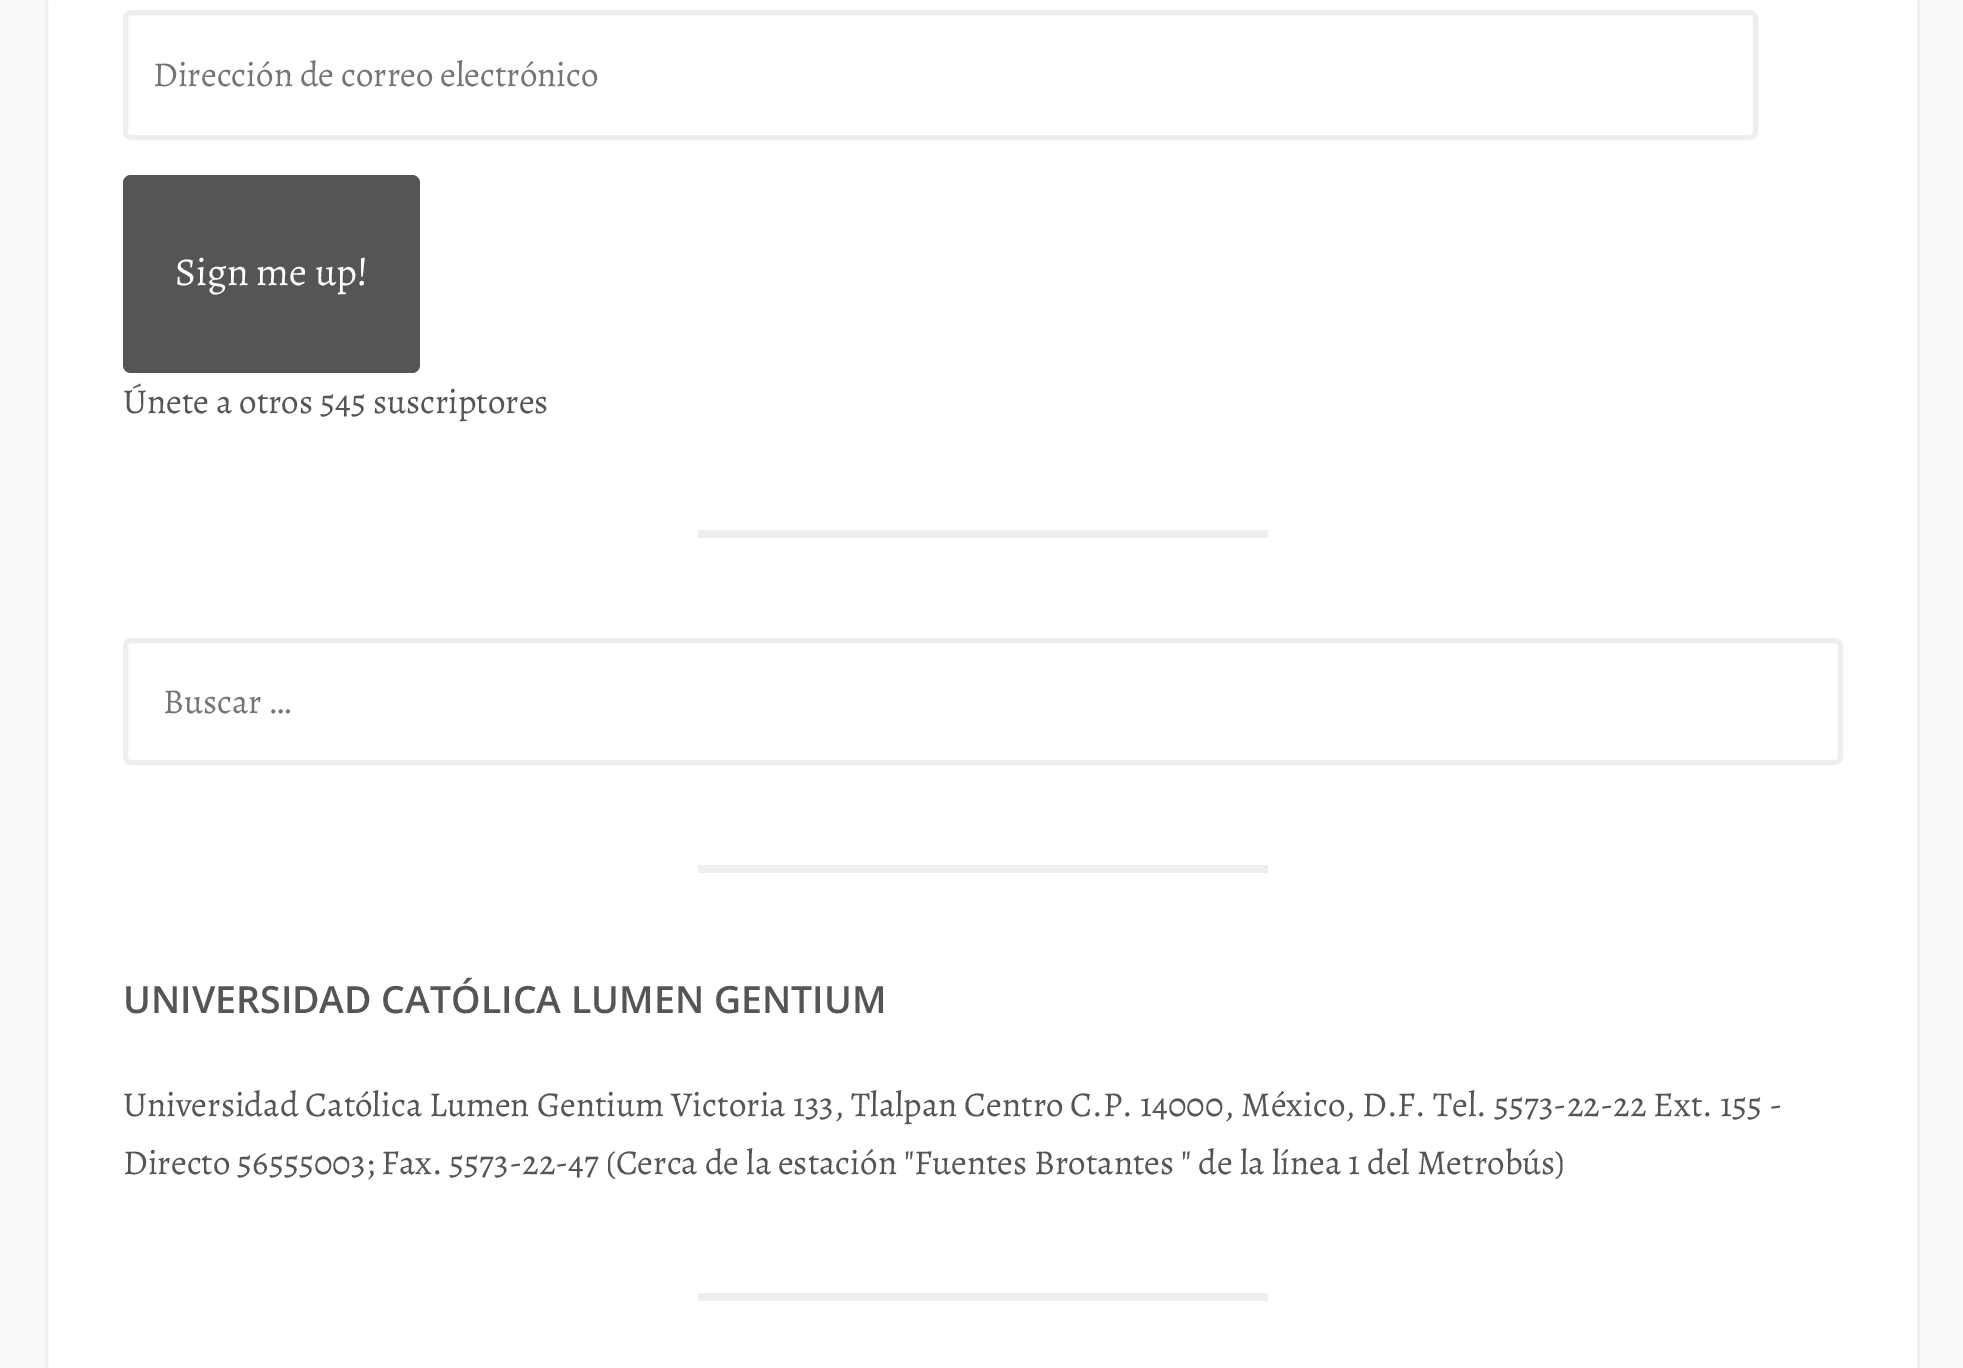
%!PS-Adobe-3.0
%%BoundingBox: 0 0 1963 1368
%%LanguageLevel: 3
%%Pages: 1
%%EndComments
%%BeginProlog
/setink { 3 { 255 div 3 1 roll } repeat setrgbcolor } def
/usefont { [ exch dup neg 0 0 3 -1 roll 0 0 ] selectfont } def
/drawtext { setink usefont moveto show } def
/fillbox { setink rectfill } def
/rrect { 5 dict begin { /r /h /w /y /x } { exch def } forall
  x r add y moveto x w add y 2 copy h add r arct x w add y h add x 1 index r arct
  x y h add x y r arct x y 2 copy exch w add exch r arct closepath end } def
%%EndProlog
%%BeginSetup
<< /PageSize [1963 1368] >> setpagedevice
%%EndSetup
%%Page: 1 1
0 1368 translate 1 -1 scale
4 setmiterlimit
0 0 1963 1368 249 249 249 fillbox
255 255 255 setink
46.5 -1.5 moveto 1918.5 -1.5 lineto 1918.5 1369.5 lineto 46.5 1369.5 lineto closepath gsave fill grestore
240 240 240 setink
3 setlinewidth
stroke
238 238 238 setink
5 setlinewidth
125.5 12.5 1630 125 5.5 rrect stroke
(Dirección de correo electrónico) 153 86 /Alegreya-Regular 35 117 117 117 drawtext
85 85 85 setink
123 175 297 198 8 rrect fill
(Sign me up!) 175 285 /Alegreya-Regular 39.5 255 255 255 drawtext
(Únete a otros 545 suscriptores) 123 413 /Alegreya-Regular 35 85 85 85 drawtext
698 530 570 8 238 238 238 fillbox
125.5 640.5 1715 122 5.5 rrect stroke
(Buscar …) 163 713 /Alegreya-Regular 35 117 117 117 drawtext
698 865 570 8 238 238 238 fillbox
(UNIVERSIDAD CATÓLICA LUMEN GENTIUM) 123 1013 /OpenSans-SemiBold 37.5 85 85 85 drawtext
(Universidad Católica Lumen Gentium Victoria 133, Tlalpan Centro C.P. 14000, México, D.F. Tel. 5573-22-22 Ext. 155 -) 123 1116 /Alegreya-Regular 35 85 85 85 drawtext
(Directo 56555003; Fax. 5573-22-47 \(Cerca de la estación "Fuentes Brotantes " de la línea 1 del Metrobús\)) 123 1174 /Alegreya-Regular 35 85 85 85 drawtext
698 1293 570 8 238 238 238 fillbox
showpage
%%EOF
